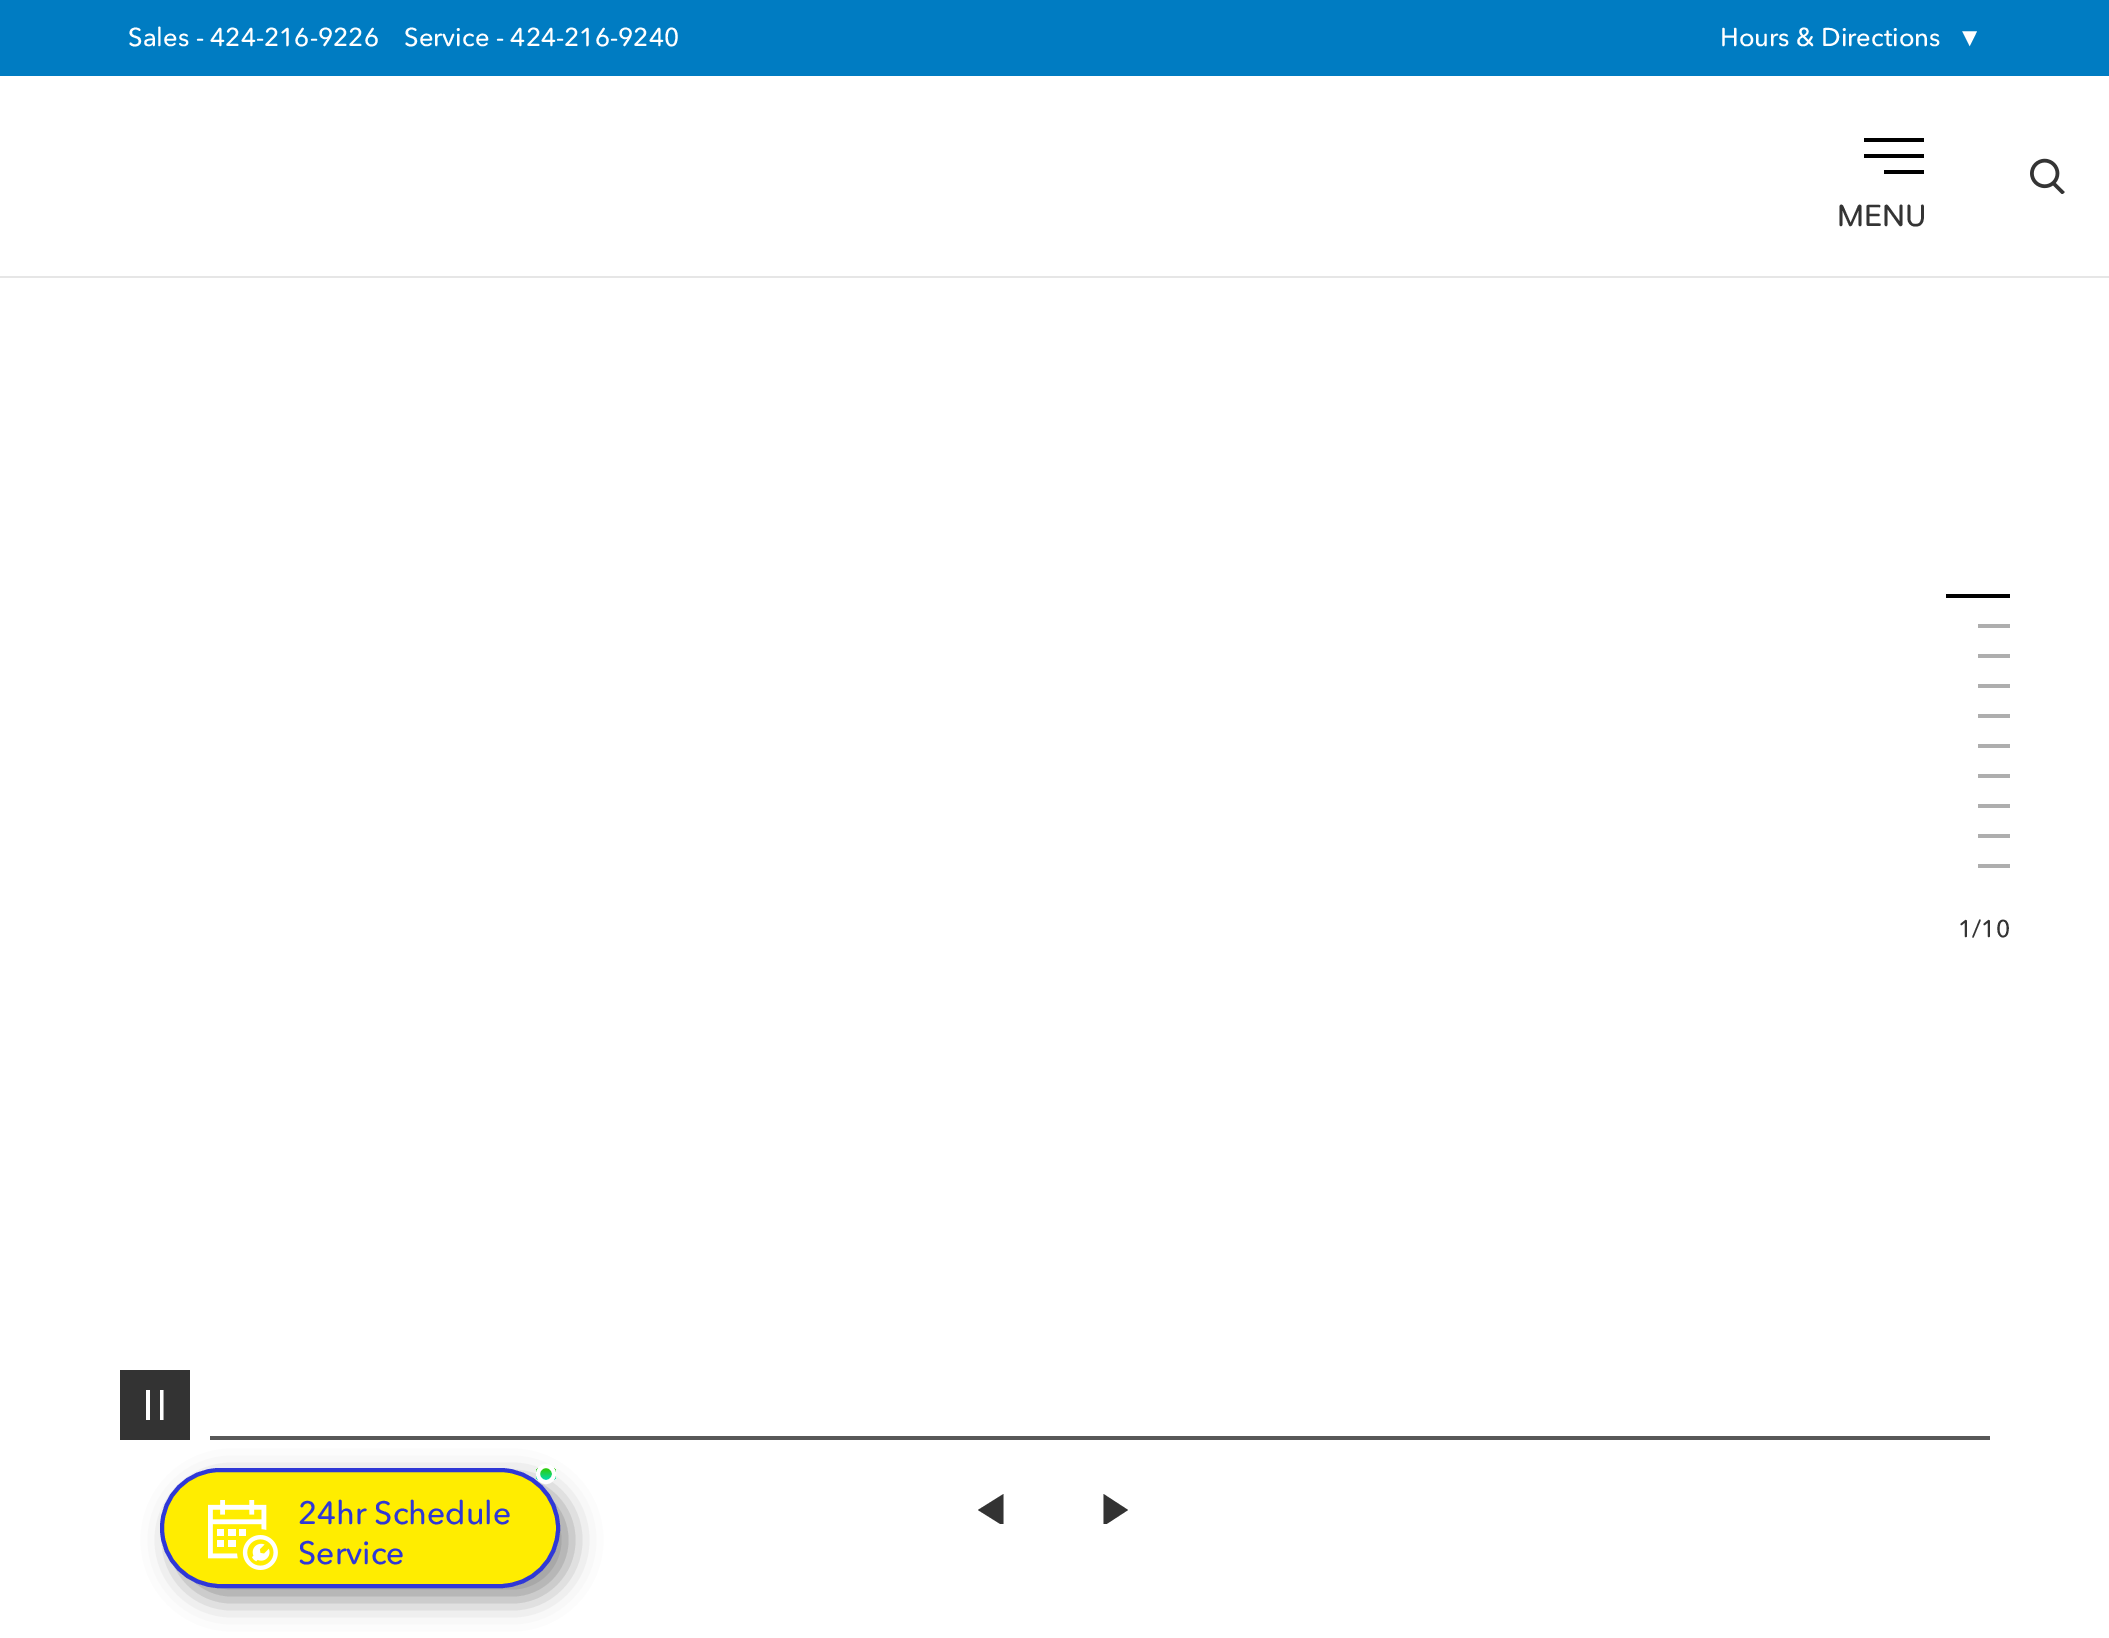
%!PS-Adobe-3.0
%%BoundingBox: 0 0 2109 1638
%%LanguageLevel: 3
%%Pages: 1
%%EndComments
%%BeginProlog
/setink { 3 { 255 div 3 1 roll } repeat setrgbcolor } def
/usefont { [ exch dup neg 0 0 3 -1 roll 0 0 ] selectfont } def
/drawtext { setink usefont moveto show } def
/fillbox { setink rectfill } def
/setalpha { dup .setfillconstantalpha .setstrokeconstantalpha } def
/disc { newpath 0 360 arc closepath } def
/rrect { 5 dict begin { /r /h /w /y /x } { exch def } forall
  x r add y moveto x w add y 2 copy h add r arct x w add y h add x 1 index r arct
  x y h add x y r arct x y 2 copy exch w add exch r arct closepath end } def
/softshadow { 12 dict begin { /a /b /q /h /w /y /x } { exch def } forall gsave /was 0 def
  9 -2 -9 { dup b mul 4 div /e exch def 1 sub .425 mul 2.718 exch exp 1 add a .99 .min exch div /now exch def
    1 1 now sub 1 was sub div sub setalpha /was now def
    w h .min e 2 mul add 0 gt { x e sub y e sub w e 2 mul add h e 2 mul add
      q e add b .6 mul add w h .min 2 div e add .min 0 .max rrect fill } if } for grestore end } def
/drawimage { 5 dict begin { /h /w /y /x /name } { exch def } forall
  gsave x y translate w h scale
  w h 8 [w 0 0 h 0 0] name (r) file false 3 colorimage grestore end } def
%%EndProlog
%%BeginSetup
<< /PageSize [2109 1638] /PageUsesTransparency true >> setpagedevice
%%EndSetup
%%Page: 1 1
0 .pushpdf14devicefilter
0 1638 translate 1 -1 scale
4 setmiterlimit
0 0 2109 1638 255 255 255 fillbox
0 0 2109 76 0 124 194 fillbox
(Sales - 424-216-9226) 128 46 /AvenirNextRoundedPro-Medium 25.6 255 255 255 drawtext
(Service - 424-216-9240) 404 46 /AvenirNextRoundedPro-Medium 25.6 255 255 255 drawtext
(Hours & Directions) 1720 46 /AvenirNextRoundedPro-Medium 25.6 255 255 255 drawtext
(▼) 1957 46 /LiberationSans-Regular 25.6 255 255 255 drawtext
0 276 2109 2 230 230 230 fillbox
(assets/img1.rgb) 2030 158 35 36 drawimage
1864 154 60 4 0 0 0 fillbox
1884 170 40 4 0 0 0 fillbox
1864 138 60 4 0 0 0 fillbox
(MENU) 1837 226 /AvenirNextRoundedPro-Medium 30 52 52 52 drawtext
1946 594 64 4 0 0 0 fillbox
1978 624 32 4 174 174 174 fillbox
1978 654 32 4 174 174 174 fillbox
1978 684 32 4 174 174 174 fillbox
1978 714 32 4 174 174 174 fillbox
1978 744 32 4 174 174 174 fillbox
1978 774 32 4 174 174 174 fillbox
1978 804 32 4 174 174 174 fillbox
1978 834 32 4 174 174 174 fillbox
1978 864 32 4 174 174 174 fillbox
gsave
978 1494 30 30 rectclip
51 51 51 setink
978 1510 moveto 1003.5 1494 lineto 1003.5 1526 lineto closepath fill
grestore
gsave
1098 1494 30 30 rectclip
51 51 51 setink
1128 1510 moveto 1103.5 1494 lineto 1103.5 1526 lineto closepath fill
grestore
(1/10) 1958 937 /AvenirNextRoundedPro-Medium 24 52 52 52 drawtext
120 1370 70 70 51 51 51 fillbox
255 255 255 setink
150 1390 moveto 146 1390 lineto 146 1420 lineto 150 1420 lineto closepath 163.5 1390 moveto 160 1390 lineto 160 1420 lineto 163.5 1420 lineto closepath eofill
210 1436 1780 4 88 88 88 fillbox
0 0 0 setink
172 1480 400 120 60 14 0.4 softshadow
255 237 0 setink
162 1470 396 116 58 rrect gsave fill grestore
47 56 214 setink
4 setlinewidth
stroke
gsave
536 1464 20 20 10 rrect clip newpath
gsave 536 1468 moveto 556 1468 lineto 556 1480 lineto 536 1480 lineto closepath clip newpath
<< /ShadingType 2 /ColorSpace /DeviceRGB /Coords [546 1468 546 1480] /Extend [true true] /Function << /FunctionType 3 /Domain [0 1] /Functions [<< /FunctionType 2 /Domain [0 1] /C0 [0.188 0.796 0] /C1 [0.188 0.796 0] /N 1 >> << /FunctionType 2 /Domain [0 1] /C0 [0.188 0.796 0] /C1 [0 0.859 0.694] /N 1 >>] /Bounds [0.01] /Encode [0 1 0 1] >> >> shfill grestore
grestore
255 255 255 setink
546 1474 8 disc stroke
(assets/img2.rgb) 208 1500 70 70 drawimage
(24hr Schedule) 298 1524 /AvenirNextRoundedPro-Medium 32 47 56 214 drawtext
(Service) 298 1564 /AvenirNextRoundedPro-Medium 32 47 56 214 drawtext
.poppdf14devicefilter showpage
%%EOF
